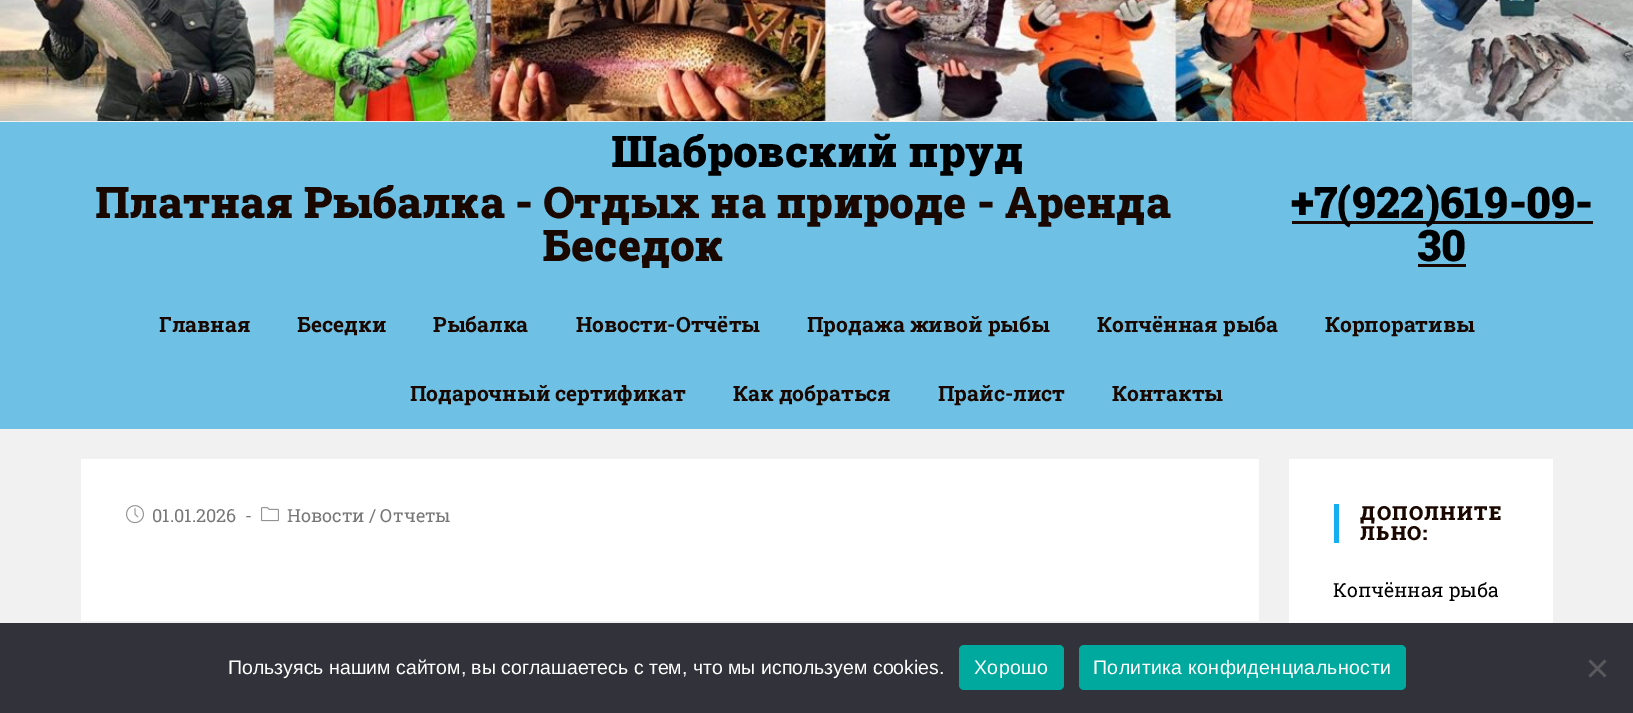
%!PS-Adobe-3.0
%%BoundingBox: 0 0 1633 713
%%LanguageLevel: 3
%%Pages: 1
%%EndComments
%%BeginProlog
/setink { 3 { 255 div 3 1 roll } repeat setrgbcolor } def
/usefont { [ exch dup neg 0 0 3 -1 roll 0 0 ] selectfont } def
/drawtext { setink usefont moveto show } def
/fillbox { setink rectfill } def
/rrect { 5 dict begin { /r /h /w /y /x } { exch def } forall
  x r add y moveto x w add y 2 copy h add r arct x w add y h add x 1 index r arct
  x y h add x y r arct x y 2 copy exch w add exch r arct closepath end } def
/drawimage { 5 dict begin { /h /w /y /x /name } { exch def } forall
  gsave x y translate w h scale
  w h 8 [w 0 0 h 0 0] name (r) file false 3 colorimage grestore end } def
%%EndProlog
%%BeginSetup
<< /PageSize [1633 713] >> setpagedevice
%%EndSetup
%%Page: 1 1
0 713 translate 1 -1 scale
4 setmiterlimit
0 0 1633 713 241 241 241 fillbox
(assets/img1.rgb) 0 0 1633 121 drawimage
0 122 1633 307 110 193 228 fillbox
(Шабровский пруд) 611 167 /RobotoSlab-Black 43.5 0 0 0 drawtext
(Платная Рыбалка - Отдых на природе - Аренда) 95 218 /RobotoSlab-Black 43.5 25 7 0 drawtext
(Беседок) 542 261 /RobotoSlab-Black 43.5 25 7 0 drawtext
1292 221 301 3 25 7 0 fillbox
(+7\(922\)619-09-) 1291 218 /RobotoSlab-Black 43.5 0 0 0 drawtext
(30) 1417 261 /RobotoSlab-Black 43.5 0 0 0 drawtext
1418 264 48 3 25 7 0 fillbox
(Главная) 159 332 /RobotoSlab-Bold 21 25 7 0 drawtext
(Беседки) 297 332 /RobotoSlab-Bold 21 25 7 0 drawtext
(Рыбалка) 433 332 /RobotoSlab-Bold 21 25 7 0 drawtext
(Новости-Отчёты) 576 332 /RobotoSlab-Bold 21 25 7 0 drawtext
(Продажа живой рыбы) 807 332 /RobotoSlab-Bold 21 25 7 0 drawtext
(Копчённая рыба) 1097 332 /RobotoSlab-Bold 21 25 7 0 drawtext
(Корпоративы) 1325 332 /RobotoSlab-Bold 21 25 7 0 drawtext
(Подарочный сертификат) 410 401 /RobotoSlab-Bold 21 25 7 0 drawtext
(Как добраться) 733 401 /RobotoSlab-Bold 21 25 7 0 drawtext
(Прайс-лист) 938 401 /RobotoSlab-Bold 21 25 7 0 drawtext
(Контакты) 1112 401 /RobotoSlab-Bold 21 25 7 0 drawtext
81 459 1178 162 255 255 255 fillbox
(assets/img2.rgb) 126 505 18 19 drawimage
(01.01.2026) 152 522 /RobotoSlab-Regular 18 119 119 119 drawtext
(-) 245 522 /RobotoSlab-Regular 18 119 119 119 drawtext
(assets/img3.rgb) 261 507 18 15 drawimage
(Новости / Отчеты) 287 522 /RobotoSlab-Regular 18 119 119 119 drawtext
1289 459 264 164 255 255 255 fillbox
1334 504 5 39 19 175 240 fillbox
/RobotoSlab-Black 19.5 usefont
25 7 0 setink
1360 520 moveto 1.5 0 (ДОПОЛНИТЕ) ashow
1360 540 moveto 1.5 0 (ЛЬНО:) ashow
(Копчённая рыба) 1333 597 /RobotoSlab-Regular 19.5 0 0 0 drawtext
0 623 1633 90 50 50 58 fillbox
(Пользуясь нашим сайтом, вы соглашаетесь с тем, что мы используем cookies.) 228 674 /LiberationSans-Regular 19.5 255 255 255 drawtext
0 169 157 setink
959 645 105 45 5 rrect fill
255 255 255 setink
974 674 moveto 0.4 0 (Хорошо) ashow
0 169 157 setink
1079 645 327 45 5 rrect fill
255 255 255 setink
1093 674 moveto 0.4 0 (Политика конфиденциальности) ashow
89 89 93 setink
1604.5 659.5 moveto 1606.5 661.5 lineto 1590.5 677.5 lineto 1588.5 675.5 lineto closepath fill
1588.5 661.5 moveto 1590.5 659.5 lineto 1606.5 675.5 lineto 1604.5 677.5 lineto closepath fill
showpage
%%EOF
